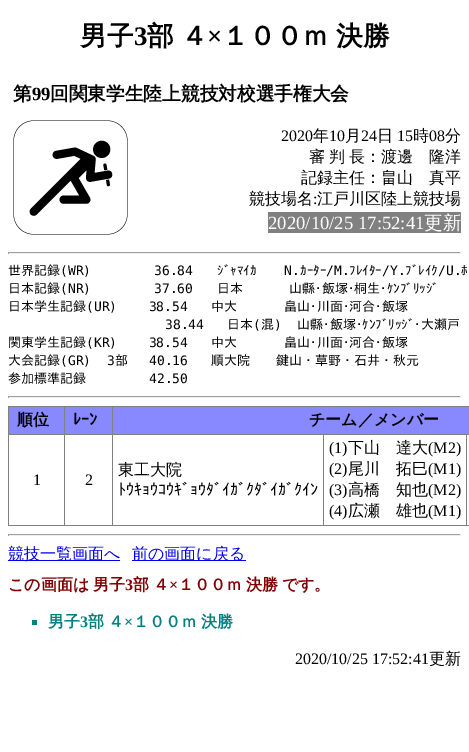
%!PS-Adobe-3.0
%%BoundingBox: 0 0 469 752
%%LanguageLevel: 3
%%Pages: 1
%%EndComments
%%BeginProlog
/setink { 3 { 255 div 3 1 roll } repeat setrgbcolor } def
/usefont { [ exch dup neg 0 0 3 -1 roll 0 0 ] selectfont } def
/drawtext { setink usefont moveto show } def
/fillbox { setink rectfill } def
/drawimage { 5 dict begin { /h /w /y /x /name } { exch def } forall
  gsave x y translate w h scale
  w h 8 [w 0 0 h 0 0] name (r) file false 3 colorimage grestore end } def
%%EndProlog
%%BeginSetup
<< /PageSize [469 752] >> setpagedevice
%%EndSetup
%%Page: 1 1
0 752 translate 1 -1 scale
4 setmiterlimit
0 0 469 752 255 255 255 fillbox
(男子) 80 45 /WenQuanYiZenHei-Bold 26.75 0 0 0 drawtext
(3) 134 45 /LiberationSerif-Bold 26.75 0 0 0 drawtext
/WenQuanYiZenHei-Bold 26.75 usefont
147 45 moveto -1 0 32 (部 ４) widthshow
(×) 207 45 /LiberationSerif-Bold 26.75 0 0 0 drawtext
/WenQuanYiZenHei-Bold 26.75 usefont
222 45 moveto -1 0 32 (１００ｍ 決勝) widthshow
(第) 13 100 /WenQuanYiZenHei-Bold 18.7 0 0 0 drawtext
(99) 32 100 /LiberationSerif-Bold 18.7 0 0 0 drawtext
(回関東学生陸上競技対校選手権大会) 50 100 /WenQuanYiZenHei-Bold 18.7 0 0 0 drawtext
(assets/img1.rgb) 13 120 115 115 drawimage
(2020) 281 141 /LiberationSerif-Regular 16 0 0 0 drawtext
(年) 313 141 /WenQuanYiZenHei-Medium 16 0 0 0 drawtext
(10) 329 141 /LiberationSerif-Regular 16 0 0 0 drawtext
(月) 345 141 /WenQuanYiZenHei-Medium 16 0 0 0 drawtext
(24) 361 141 /LiberationSerif-Regular 16 0 0 0 drawtext
(日) 377 141 /WenQuanYiZenHei-Medium 16 0 0 0 drawtext
(15) 397 141 /LiberationSerif-Regular 16 0 0 0 drawtext
(時) 413 141 /WenQuanYiZenHei-Medium 16 0 0 0 drawtext
(08) 429 141 /LiberationSerif-Regular 16 0 0 0 drawtext
(分) 445 141 /WenQuanYiZenHei-Medium 16 0 0 0 drawtext
309 162 moveto -1 0 32 (審 判 長：渡邊　隆洋) widthshow
(記録主任：畠山　真平) 301 183 /WenQuanYiZenHei-Medium 16 0 0 0 drawtext
(競技場名) 249 204 /WenQuanYiZenHei-Medium 16 0 0 0 drawtext
(:) 313 204 /LiberationSerif-Regular 16 0 0 0 drawtext
(江戸川区陸上競技場) 317 204 /WenQuanYiZenHei-Medium 16 0 0 0 drawtext
268 212 193 21 128 128 128 fillbox
(2020/10/25 17:52:41) 268 229 /LiberationSerif-Regular 18.7 255 255 255 drawtext
(更新) 424 229 /WenQuanYiZenHei-Medium 18.7 255 255 255 drawtext
8 252 453 1 159 159 159 fillbox
460 252 1 2 238 238 238 fillbox
8 253 453 1 238 238 238 fillbox
8 252 1 2 159 159 159 fillbox
(世界記録) 8 275 /IPAGothic-Regular 13 0 0 0 drawtext
(\(WR\)        36.84) 60 275 /DejaVuSansMono-Regular 13 0 0 0 drawtext
(ｼﾞｬﾏｲｶ) 217 275 /IPAGothic-Regular 13 0 0 0 drawtext
(N.) 284 275 /DejaVuSansMono-Regular 13 0 0 0 drawtext
(ｶｰﾀｰ) 300 275 /IPAGothic-Regular 13 0 0 0 drawtext
(/M.) 326 275 /DejaVuSansMono-Regular 13 0 0 0 drawtext
(ﾌﾚｲﾀｰ) 349 275 /IPAGothic-Regular 13 0 0 0 drawtext
(/Y.) 382 275 /DejaVuSansMono-Regular 13 0 0 0 drawtext
(ﾌﾞﾚｲｸ) 405 275 /IPAGothic-Regular 13 0 0 0 drawtext
(/U.) 438 275 /DejaVuSansMono-Regular 13 0 0 0 drawtext
(ﾎ) 461 275 /IPAGothic-Regular 13 0 0 0 drawtext
(日本記録) 8 293 /IPAGothic-Regular 13 0 0 0 drawtext
(\(NR\)        37.60) 60 293 /DejaVuSansMono-Regular 13 0 0 0 drawtext
(日本) 217 293 /IPAGothic-Regular 13 0 0 0 drawtext
(山縣･飯塚･桐生･ｹﾝﾌﾞﾘｯｼﾞ) 289 293 /IPAGothic-Regular 13 0 0 0 drawtext
(日本学生記録) 8 311 /IPAGothic-Regular 13 0 0 0 drawtext
(\(UR\)    38.54) 86 311 /DejaVuSansMono-Regular 13 0 0 0 drawtext
(中大) 211 311 /IPAGothic-Regular 13 0 0 0 drawtext
(畠山･川面･河合･飯塚) 284 311 /IPAGothic-Regular 13 0 0 0 drawtext
(38.44) 165 329 /DejaVuSansMono-Regular 13 0 0 0 drawtext
(日本) 227 329 /IPAGothic-Regular 13 0 0 0 drawtext
(\() 253 329 /DejaVuSansMono-Regular 13 0 0 0 drawtext
(混) 261 329 /IPAGothic-Regular 13 0 0 0 drawtext
(\)) 274 329 /DejaVuSansMono-Regular 13 0 0 0 drawtext
(山縣･飯塚･ｹﾝﾌﾞﾘｯｼﾞ･大瀬戸) 297 329 /IPAGothic-Regular 13 0 0 0 drawtext
(関東学生記録) 8 347 /IPAGothic-Regular 13 0 0 0 drawtext
(\(KR\)    38.54) 86 347 /DejaVuSansMono-Regular 13 0 0 0 drawtext
(中大) 211 347 /IPAGothic-Regular 13 0 0 0 drawtext
(畠山･川面･河合･飯塚) 284 347 /IPAGothic-Regular 13 0 0 0 drawtext
(大会記録) 8 365 /IPAGothic-Regular 13 0 0 0 drawtext
(\(GR\)  3) 60 365 /DejaVuSansMono-Regular 13 0 0 0 drawtext
(部) 115 365 /IPAGothic-Regular 13 0 0 0 drawtext
(40.16) 149 365 /DejaVuSansMono-Regular 13 0 0 0 drawtext
(順大院　　鍵山・草野・石井・秋元) 211 365 /IPAGothic-Regular 13 0 0 0 drawtext
(参加標準記録) 8 383 /IPAGothic-Regular 13 0 0 0 drawtext
(42.50) 149 383 /DejaVuSansMono-Regular 13 0 0 0 drawtext
8 396 453 1 159 159 159 fillbox
460 396 1 2 238 238 238 fillbox
8 397 453 1 238 238 238 fillbox
8 396 1 2 159 159 159 fillbox
8 406 461 1 128 128 128 fillbox
8 406 1 120 128 128 128 fillbox
9 407 55 27 136 136 255 fillbox
466 525 3 1 128 128 128 fillbox
466 434 1 92 128 128 128 fillbox
323 525 144 1 128 128 128 fillbox
323 434 1 92 128 128 128 fillbox
112 525 212 1 128 128 128 fillbox
112 434 1 92 128 128 128 fillbox
112 434 357 1 128 128 128 fillbox
112 406 1 29 128 128 128 fillbox
64 525 49 1 128 128 128 fillbox
64 434 1 92 128 128 128 fillbox
64 434 49 1 128 128 128 fillbox
64 406 1 29 128 128 128 fillbox
8 434 57 1 128 128 128 fillbox
(順位) 17 425 /WenQuanYiZenHei-Bold 16 0 0 0 drawtext
65 407 47 27 136 136 255 fillbox
(ﾚｰﾝ) 73 425 /IPAGothic-Bold 16 0 0 0 drawtext
113 407 356 27 136 136 255 fillbox
(チーム／メンバー) 309 425 /WenQuanYiZenHei-Bold 16 0 0 0 drawtext
8 525 57 1 128 128 128 fillbox
(1) 33 485 /LiberationSerif-Regular 16 0 0 0 drawtext
(2) 85 485 /LiberationSerif-Regular 16 0 0 0 drawtext
(東工大院) 118 475 /WenQuanYiZenHei-Medium 16 0 0 0 drawtext
(ﾄｳｷｮｳｺｳｷﾞｮｳﾀﾞｲｶﾞｸﾀﾞｲｶﾞｸｲﾝ) 118 495 /IPAGothic-Regular 16 0 0 0 drawtext
(\(1\)) 329 453 /LiberationSerif-Regular 16 0 0 0 drawtext
(下山　達大) 348 453 /WenQuanYiZenHei-Medium 16 0 0 0 drawtext
(\(M2\)) 428 453 /LiberationSerif-Regular 16 0 0 0 drawtext
(\(2\)) 329 474 /LiberationSerif-Regular 16 0 0 0 drawtext
(尾川　拓巳) 348 474 /WenQuanYiZenHei-Medium 16 0 0 0 drawtext
(\(M1\)) 428 474 /LiberationSerif-Regular 16 0 0 0 drawtext
(\(3\)) 329 495 /LiberationSerif-Regular 16 0 0 0 drawtext
(高橋　知也) 348 495 /WenQuanYiZenHei-Medium 16 0 0 0 drawtext
(\(M2\)) 428 495 /LiberationSerif-Regular 16 0 0 0 drawtext
(\(4\)) 329 516 /LiberationSerif-Regular 16 0 0 0 drawtext
(広瀬　雄也) 348 516 /WenQuanYiZenHei-Medium 16 0 0 0 drawtext
(\(M1\)) 428 516 /LiberationSerif-Regular 16 0 0 0 drawtext
8 534 453 1 159 159 159 fillbox
460 534 1 2 238 238 238 fillbox
8 535 453 1 238 238 238 fillbox
8 534 1 2 159 159 159 fillbox
8 560 112 1 0 0 238 fillbox
(競技一覧画面へ) 8 559 /WenQuanYiZenHei-Medium 16 0 0 238 drawtext
132 560 114 1 0 0 238 fillbox
(前の画面に戻る) 132 559 /WenQuanYiZenHei-Medium 16 0 0 238 drawtext
/WenQuanYiZenHei-Bold 16 usefont
128 0 0 setink
8 590 moveto -1 0 32 (この画面は 男子) widthshow
(3) 125 590 /LiberationSerif-Bold 16 128 0 0 drawtext
/WenQuanYiZenHei-Bold 16 usefont
133 590 moveto -1 0 32 (部 ４) widthshow
(×) 169 590 /LiberationSerif-Bold 16 128 0 0 drawtext
/WenQuanYiZenHei-Bold 16 usefont
178 590 moveto -1 0 32 (１００ｍ 決勝 です。) widthshow
32 620 5 5 0 128 128 fillbox
(男子) 48 627 /WenQuanYiZenHei-Bold 16 0 128 128 drawtext
(3) 80 627 /LiberationSerif-Bold 16 0 128 128 drawtext
/WenQuanYiZenHei-Bold 16 usefont
88 627 moveto -1 0 32 (部 ４) widthshow
(×) 124 627 /LiberationSerif-Bold 16 0 128 128 drawtext
/WenQuanYiZenHei-Bold 16 usefont
133 627 moveto -1 0 32 (１００ｍ 決勝) widthshow
(2020/10/25 17:52:41) 295 664 /LiberationSerif-Regular 16 0 0 0 drawtext
(更新) 429 664 /WenQuanYiZenHei-Medium 16 0 0 0 drawtext
showpage
%%EOF
